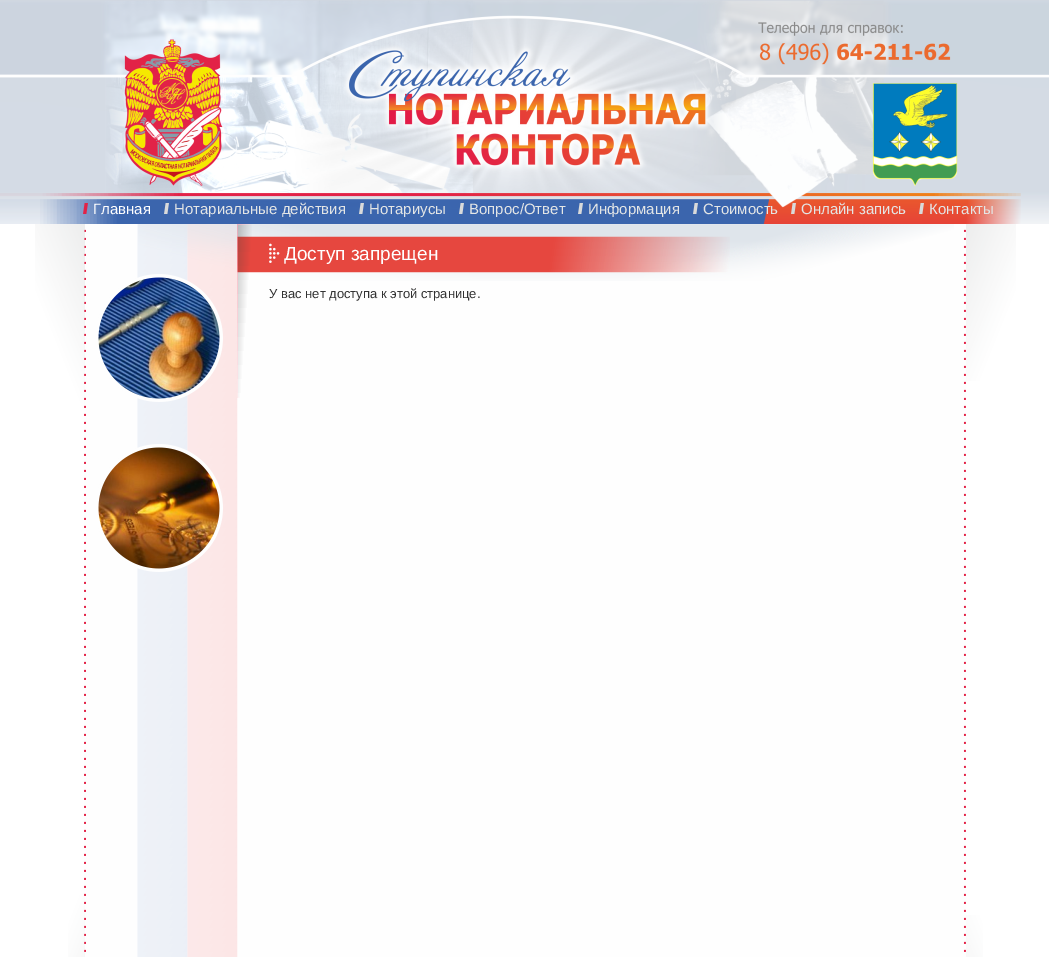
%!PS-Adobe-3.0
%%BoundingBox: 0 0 1049 957
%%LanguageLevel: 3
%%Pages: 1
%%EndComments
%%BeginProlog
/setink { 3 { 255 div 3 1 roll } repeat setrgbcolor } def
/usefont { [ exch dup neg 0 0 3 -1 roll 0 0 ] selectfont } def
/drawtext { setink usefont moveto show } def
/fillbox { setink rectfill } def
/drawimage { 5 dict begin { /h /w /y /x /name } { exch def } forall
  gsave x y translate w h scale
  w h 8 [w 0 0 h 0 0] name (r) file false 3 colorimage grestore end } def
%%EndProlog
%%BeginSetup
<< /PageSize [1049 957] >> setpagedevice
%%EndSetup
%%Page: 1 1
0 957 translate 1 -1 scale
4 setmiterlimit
0 0 1049 957 255 255 255 fillbox
(assets/img1.rgb) 0 0 40 224 drawimage
(assets/img2.rgb) 40 0 981 224 drawimage
(assets/img3.rgb) 83 203 5 11 drawimage
(Главная) 93 214 /LiberationSans-Regular 15 255 255 255 drawtext
(assets/img4.rgb) 164 203 5 11 drawimage
(Нотариальные действия) 174 214 /LiberationSans-Regular 15 228 230 230 drawtext
(assets/img5.rgb) 359 203 5 11 drawimage
(Нотариусы) 369 214 /LiberationSans-Regular 15 228 230 230 drawtext
(assets/img6.rgb) 459 203 5 11 drawimage
(Вопрос/Ответ) 469 214 /LiberationSans-Regular 15 228 230 230 drawtext
(assets/img4.rgb) 578 203 5 11 drawimage
(Информация) 588 214 /LiberationSans-Regular 15 228 230 230 drawtext
(assets/img4.rgb) 693 203 5 11 drawimage
(Стоимость) 703 214 /LiberationSans-Regular 15 228 230 230 drawtext
(assets/img7.rgb) 791 203 5 11 drawimage
(Онлайн запись) 801 214 /LiberationSans-Regular 15 228 230 230 drawtext
(assets/img8.rgb) 919 203 5 11 drawimage
(Контакты) 929 214 /LiberationSans-Regular 15 228 230 230 drawtext
(assets/img9.rgb) 1021 0 28 224 drawimage
(assets/img15.rgb) 84 224 882 733 drawimage
(assets/img10.rgb) 35 224 50 184 drawimage
(assets/img11.rgb) 138 224 816 57 drawimage
(assets/img12.rgb) 237 224 493 174 drawimage
(assets/img13.rgb) 966 224 50 157 drawimage
(assets/img14.rgb) 98 274 125 128 drawimage
gsave
284 238 623 35 rectclip
(Доступ запрещен) 284 260 /LiberationSans-Regular 19 255 255 255 drawtext
grestore
(У вас нет доступа к этой странице.) 269 298 /LiberationSans-Regular 13 51 51 51 drawtext
(assets/img16.rgb) 98 444 125 128 drawimage
(assets/img17.rgb) 68 886 17 71 drawimage
(assets/img18.rgb) 966 915 17 42 drawimage
showpage
%%EOF
